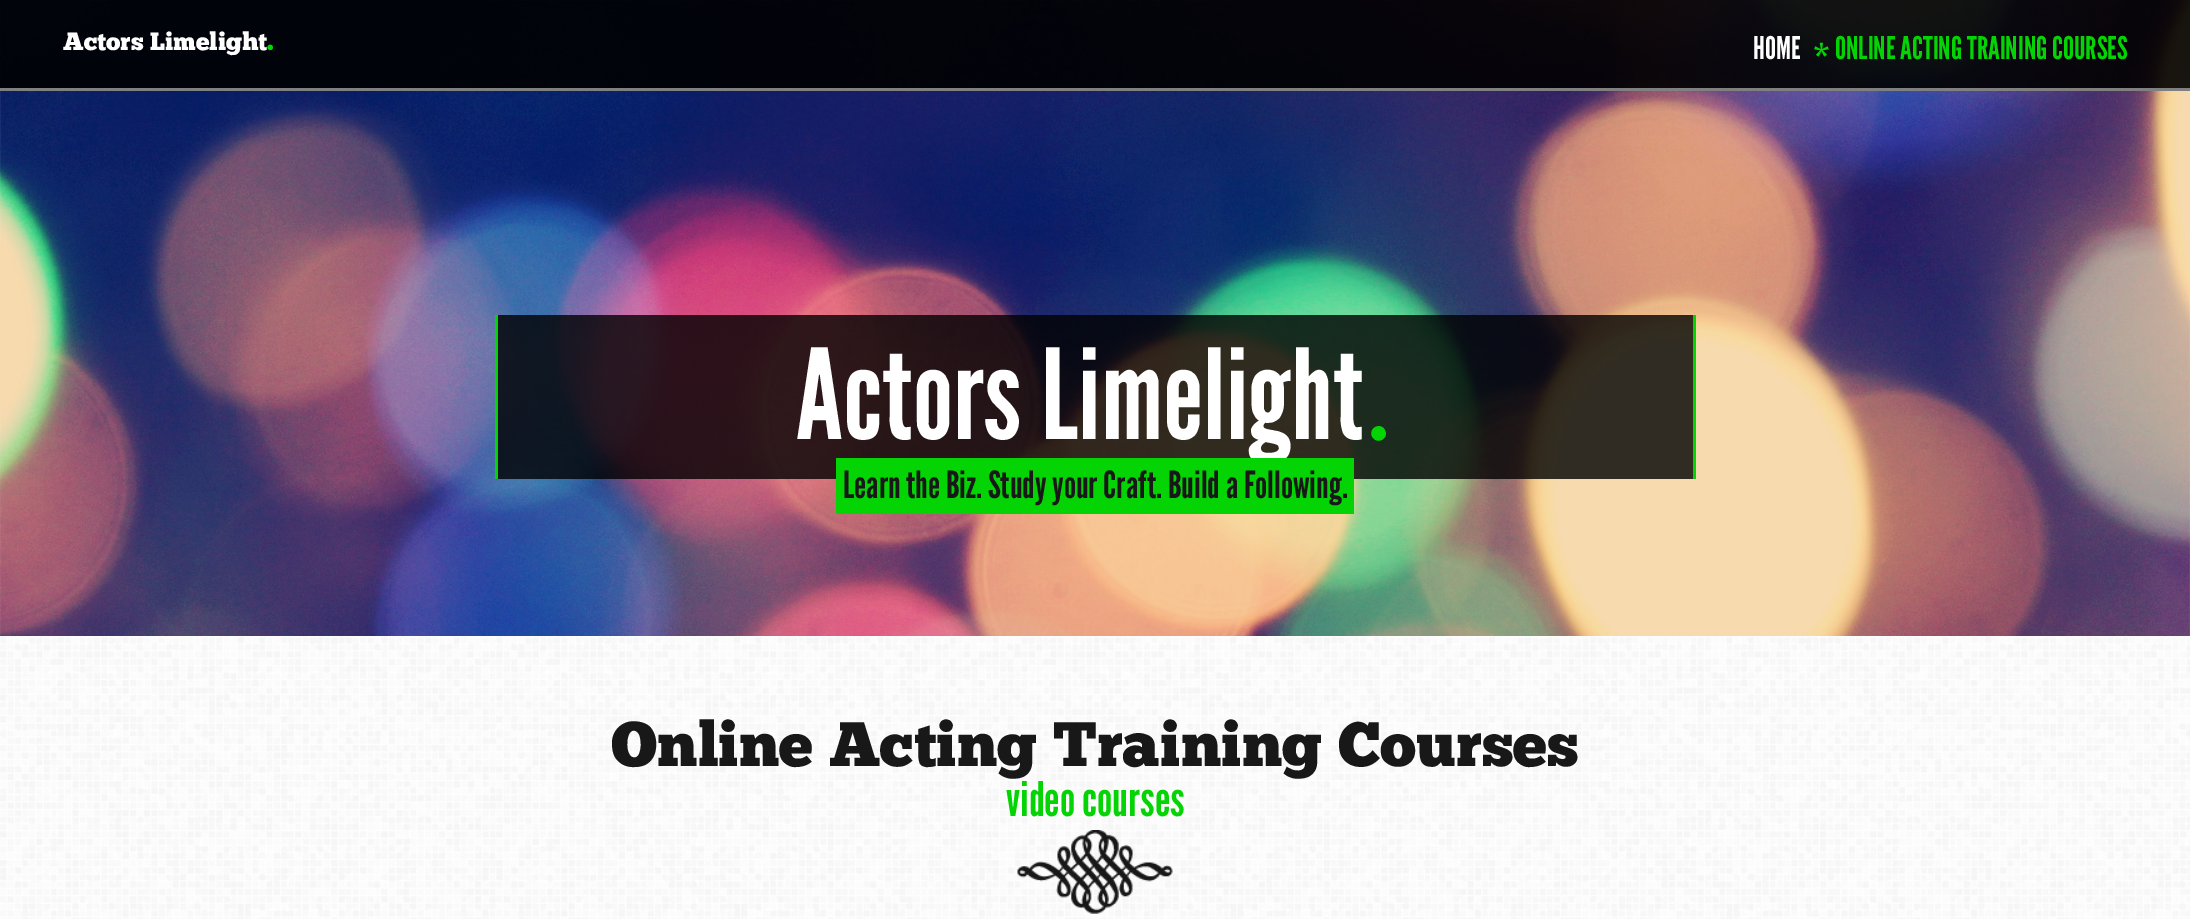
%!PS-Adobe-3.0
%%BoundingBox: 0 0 2190 919
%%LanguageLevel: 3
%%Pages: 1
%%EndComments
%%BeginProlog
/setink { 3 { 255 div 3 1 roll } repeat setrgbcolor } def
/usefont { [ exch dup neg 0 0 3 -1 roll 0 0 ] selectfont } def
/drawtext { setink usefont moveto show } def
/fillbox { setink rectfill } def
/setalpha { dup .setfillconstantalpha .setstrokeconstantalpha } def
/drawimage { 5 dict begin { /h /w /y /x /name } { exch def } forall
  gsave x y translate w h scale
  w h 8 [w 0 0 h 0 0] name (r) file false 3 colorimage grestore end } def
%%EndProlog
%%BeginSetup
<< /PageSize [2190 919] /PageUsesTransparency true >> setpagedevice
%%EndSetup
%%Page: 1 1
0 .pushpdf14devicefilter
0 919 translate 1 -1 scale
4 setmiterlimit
0 0 2190 919 255 255 255 fillbox
(assets/img1.rgb) 0 0 2190 636 drawimage
0.9 setalpha
0 0 2190 88 0 0 0 fillbox
1 setalpha
0 88 2190 3 128 128 128 fillbox
(Actors Limelight) 63 50 /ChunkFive-Regular 25 255 255 255 drawtext
(.) 267 50 /ChunkFive-Regular 25 4 212 4 drawtext
(HOME) 1753 59 /LeagueGothic-Regular 31.25 255 255 255 drawtext
/BebasNeue-Regular 37.5 usefont
4 212 4 setink
1814 69 moveto -5 0 (*) ashow
(ONLINE ACTING TRAINING COURSES) 1835 59 /LeagueGothic-Regular 31.25 4 212 4 drawtext
0.8 setalpha
498 315 1195 164 0 0 0 fillbox
1 setalpha
1693 315 3 164 4 212 4 fillbox
495 315 3 164 4 212 4 fillbox
(Actors Limelight) 796 439 /LeagueGothic-Regular 125 255 255 255 drawtext
(.) 1363 439 /LiberationSerif-Regular 125 4 212 4 drawtext
836 458 518 56 4 212 4 fillbox
(Learn the Biz. Study your Craft. Build a Following.) 843 498 /LeagueGothic-Regular 37.5 24 24 24 drawtext
(assets/img2.rgb) 0 636 2190 283 drawimage
(assets/img3.rgb) 1017 830 156 84 drawimage
(Online Acting Training Courses) 611 766 /ChunkFive-Regular 62.5 24 24 24 drawtext
(video courses) 1006 816 /LeagueGothic-Regular 47.5 4 212 4 drawtext
.poppdf14devicefilter showpage
%%EOF
